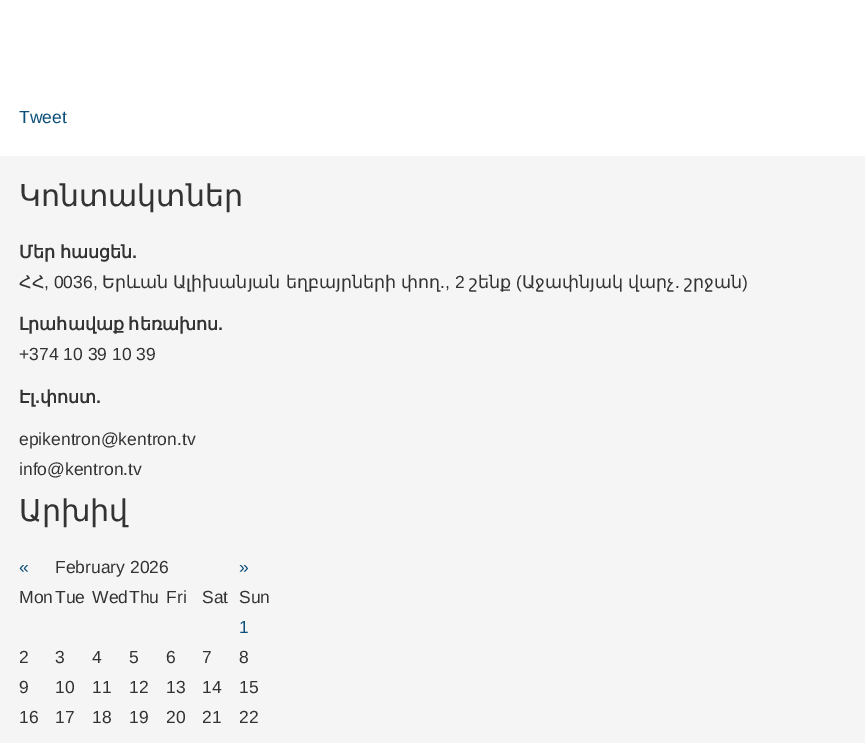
%!PS-Adobe-3.0
%%BoundingBox: 0 0 865 743
%%LanguageLevel: 3
%%Pages: 1
%%EndComments
%%BeginProlog
/setink { 3 { 255 div 3 1 roll } repeat setrgbcolor } def
/usefont { [ exch dup neg 0 0 3 -1 roll 0 0 ] selectfont } def
/drawtext { setink usefont moveto show } def
/fillbox { setink rectfill } def
%%EndProlog
%%BeginSetup
<< /PageSize [865 743] >> setpagedevice
%%EndSetup
%%Page: 1 1
0 743 translate 1 -1 scale
4 setmiterlimit
0 0 865 743 255 255 255 fillbox
(Tweet) 19 123 /LiberationSans-Regular 17.5 13 80 122 drawtext
0 156 865 587 245 245 245 fillbox
(Կոնտակտներ) 19 206 /DejaVuSans-Regular 30 51 51 51 drawtext
/DejaVuSans-Bold 17.5 usefont
19 258 moveto -1 0 32 (Մեր հասցեն) widthshow
(.) 132 258 /LiberationSans-Bold 17.5 51 51 51 drawtext
(ՀՀ) 19 288 /DejaVuSans-Regular 17.5 51 51 51 drawtext
(, 0036,) 44 288 /LiberationSans-Regular 17.5 51 51 51 drawtext
(Երևան) 102 288 /DejaVuSans-Regular 17.5 51 51 51 drawtext
(Ալիխանյան) 173 288 /DejaVuSans-Regular 17.5 51 51 51 drawtext
(եղբայրների) 286 288 /DejaVuSans-Regular 17.5 51 51 51 drawtext
(փող) 401 288 /DejaVuSans-Regular 17.5 51 51 51 drawtext
(., 2) 440 288 /LiberationSans-Regular 17.5 51 51 51 drawtext
(շենք) 469 288 /DejaVuSans-Regular 17.5 51 51 51 drawtext
(\() 516 288 /LiberationSans-Regular 17.5 51 51 51 drawtext
(Աջափնյակ) 522 288 /DejaVuSans-Regular 17.5 51 51 51 drawtext
(վարչ) 628 288 /DejaVuSans-Regular 17.5 51 51 51 drawtext
(.) 675 288 /LiberationSans-Regular 17.5 51 51 51 drawtext
(շրջան) 684 288 /DejaVuSans-Regular 17.5 51 51 51 drawtext
(\)) 742 288 /LiberationSans-Regular 17.5 51 51 51 drawtext
/DejaVuSans-Bold 17.5 usefont
19 330 moveto -1 0 32 (Լրահավաք հեռախոս) widthshow
(.) 218 330 /LiberationSans-Bold 17.5 51 51 51 drawtext
(+374 10 39 10 39) 19 360 /LiberationSans-Regular 17.5 51 51 51 drawtext
(Էլ) 19 403 /DejaVuSans-Bold 17.5 51 51 51 drawtext
(.) 35 403 /LiberationSans-Bold 17.5 51 51 51 drawtext
(փոստ) 40 403 /DejaVuSans-Bold 17.5 51 51 51 drawtext
(.) 96 403 /LiberationSans-Bold 17.5 51 51 51 drawtext
(epikentron@kentron.tv) 19 445 /LiberationSans-Regular 17.5 51 51 51 drawtext
(info@kentron.tv) 19 475 /LiberationSans-Regular 17.5 51 51 51 drawtext
(Արխիվ) 19 521 /DejaVuSans-Regular 30 51 51 51 drawtext
(«) 19 573 /LiberationSans-Regular 17.5 13 80 122 drawtext
(February 2026) 55 573 /LiberationSans-Regular 17.5 51 51 51 drawtext
(») 239 573 /LiberationSans-Regular 17.5 13 80 122 drawtext
(Mon) 19 603 /LiberationSans-Regular 17.5 51 51 51 drawtext
(Tue) 55 603 /LiberationSans-Regular 17.5 51 51 51 drawtext
(Wed) 92 603 /LiberationSans-Regular 17.5 51 51 51 drawtext
(Thu) 129 603 /LiberationSans-Regular 17.5 51 51 51 drawtext
(Fri) 166 603 /LiberationSans-Regular 17.5 51 51 51 drawtext
(Sat) 202 603 /LiberationSans-Regular 17.5 51 51 51 drawtext
(Sun) 239 603 /LiberationSans-Regular 17.5 51 51 51 drawtext
(1) 239 633 /LiberationSans-Regular 17.5 13 80 122 drawtext
(2) 19 663 /LiberationSans-Regular 17.5 51 51 51 drawtext
(3) 55 663 /LiberationSans-Regular 17.5 51 51 51 drawtext
(4) 92 663 /LiberationSans-Regular 17.5 51 51 51 drawtext
(5) 129 663 /LiberationSans-Regular 17.5 51 51 51 drawtext
(6) 166 663 /LiberationSans-Regular 17.5 51 51 51 drawtext
(7) 202 663 /LiberationSans-Regular 17.5 51 51 51 drawtext
(8) 239 663 /LiberationSans-Regular 17.5 51 51 51 drawtext
(9) 19 693 /LiberationSans-Regular 17.5 51 51 51 drawtext
(10) 55 693 /LiberationSans-Regular 17.5 51 51 51 drawtext
(11) 92 693 /LiberationSans-Regular 17.5 51 51 51 drawtext
(12) 129 693 /LiberationSans-Regular 17.5 51 51 51 drawtext
(13) 166 693 /LiberationSans-Regular 17.5 51 51 51 drawtext
(14) 202 693 /LiberationSans-Regular 17.5 51 51 51 drawtext
(15) 239 693 /LiberationSans-Regular 17.5 51 51 51 drawtext
(16) 19 723 /LiberationSans-Regular 17.5 51 51 51 drawtext
(17) 55 723 /LiberationSans-Regular 17.5 51 51 51 drawtext
(18) 92 723 /LiberationSans-Regular 17.5 51 51 51 drawtext
(19) 129 723 /LiberationSans-Regular 17.5 51 51 51 drawtext
(20) 166 723 /LiberationSans-Regular 17.5 51 51 51 drawtext
(21) 202 723 /LiberationSans-Regular 17.5 51 51 51 drawtext
(22) 239 723 /LiberationSans-Regular 17.5 51 51 51 drawtext
showpage
%%EOF
